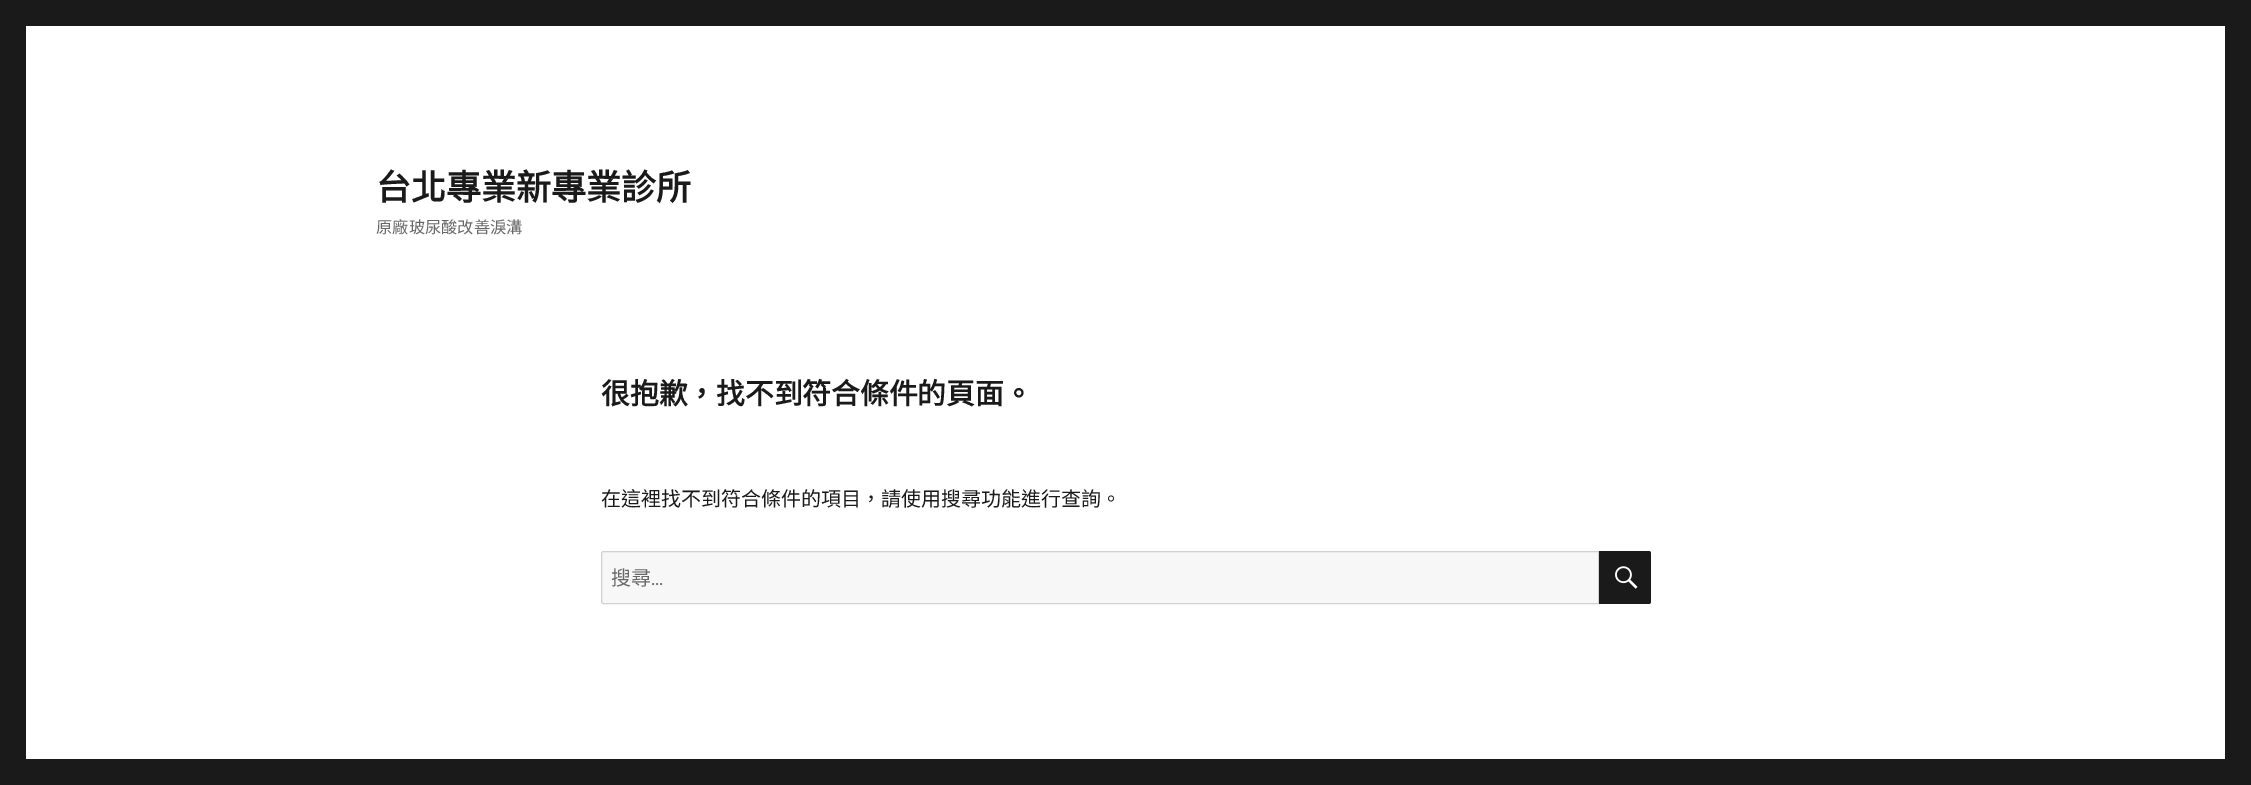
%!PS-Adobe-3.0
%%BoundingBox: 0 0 2251 785
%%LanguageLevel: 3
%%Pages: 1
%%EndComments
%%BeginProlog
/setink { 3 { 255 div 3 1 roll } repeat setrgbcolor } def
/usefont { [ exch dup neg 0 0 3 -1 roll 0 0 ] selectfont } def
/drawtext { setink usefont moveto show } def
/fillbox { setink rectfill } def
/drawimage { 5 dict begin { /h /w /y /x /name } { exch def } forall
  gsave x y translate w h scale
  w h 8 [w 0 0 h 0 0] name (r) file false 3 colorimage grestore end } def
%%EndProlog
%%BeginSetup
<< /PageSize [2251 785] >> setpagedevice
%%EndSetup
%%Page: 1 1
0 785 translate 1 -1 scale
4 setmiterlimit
0 0 2251 785 26 26 26 fillbox
26 26 2199 733 255 255 255 fillbox
(台北專業新專業診所) 376 200 /NotoSansCJKTC-Bold 35 26 26 26 drawtext
(原廠玻尿酸改善淚溝) 376 233 /NotoSansCJKTC-Regular 16.25 104 104 104 drawtext
(很抱歉，找不到符合條件的頁面。) 601 404 /NotoSansCJKTC-Bold 28.75 26 26 26 drawtext
(在這裡找不到符合條件的項目，請使用搜尋功能進行查詢。) 601 506 /NotoSansCJKTC-Regular 20 26 26 26 drawtext
247 247 247 setink
603.5 551.5 moveto 1598.5 551.5 lineto 1598.5 603.5 lineto 603.5 603.5 lineto 602.5 603.5 601.5 602.5 601.5 601.5 curveto 601.5 553.5 lineto 601.5 552.5 602.5 551.5 603.5 551.5 curveto closepath gsave fill grestore
209 209 209 setink
stroke
(搜尋) 611 585 /NotoSansCJKTC-Regular 20 104 104 104 drawtext
(...) 651 585 /Montserrat-Thin 20 104 104 104 drawtext
26 26 26 setink
1599 551 moveto 1648.5 551 lineto 1650 551 1651 552 1651 553.5 curveto 1651 601.5 lineto 1651 603 1650 604 1648.5 604 curveto 1599 604 lineto closepath fill
(assets/img1.rgb) 1615 566 23 23 drawimage
showpage
%%EOF
